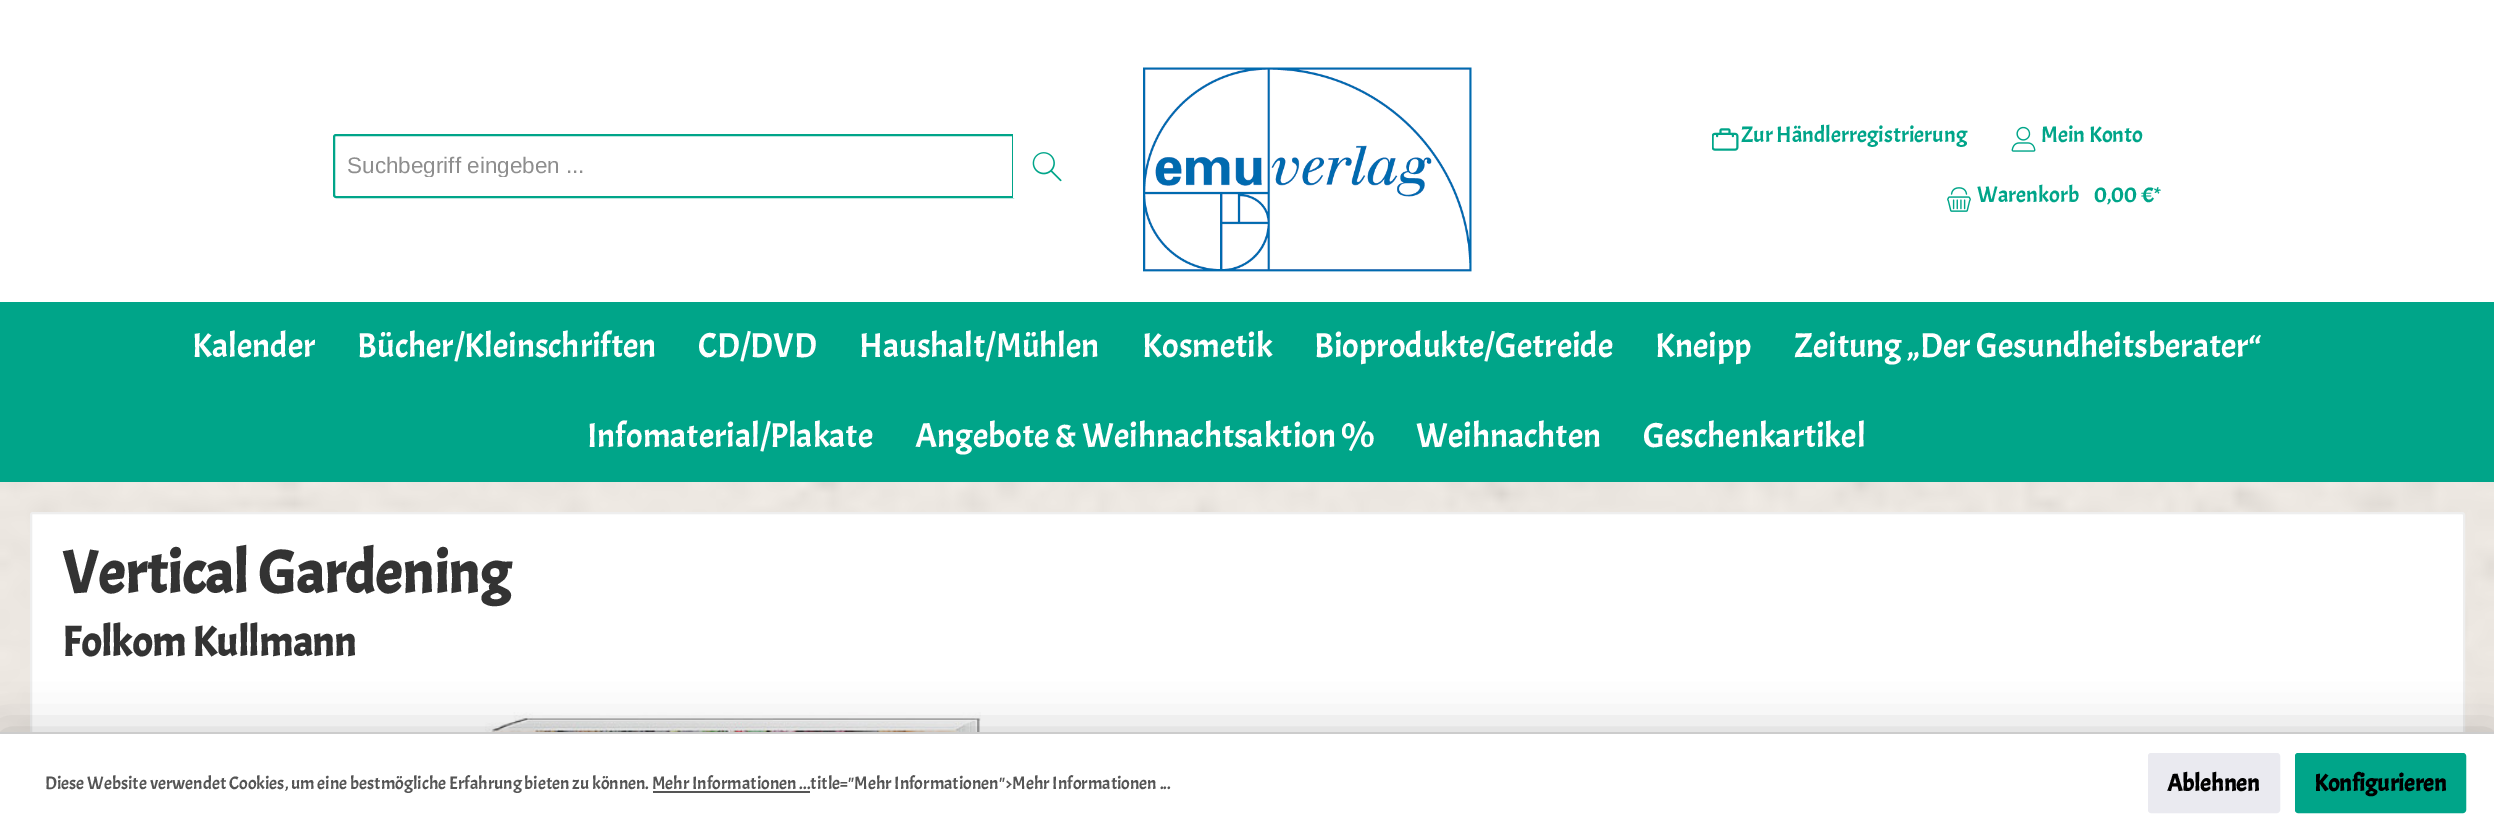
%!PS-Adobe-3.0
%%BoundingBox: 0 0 2494 832
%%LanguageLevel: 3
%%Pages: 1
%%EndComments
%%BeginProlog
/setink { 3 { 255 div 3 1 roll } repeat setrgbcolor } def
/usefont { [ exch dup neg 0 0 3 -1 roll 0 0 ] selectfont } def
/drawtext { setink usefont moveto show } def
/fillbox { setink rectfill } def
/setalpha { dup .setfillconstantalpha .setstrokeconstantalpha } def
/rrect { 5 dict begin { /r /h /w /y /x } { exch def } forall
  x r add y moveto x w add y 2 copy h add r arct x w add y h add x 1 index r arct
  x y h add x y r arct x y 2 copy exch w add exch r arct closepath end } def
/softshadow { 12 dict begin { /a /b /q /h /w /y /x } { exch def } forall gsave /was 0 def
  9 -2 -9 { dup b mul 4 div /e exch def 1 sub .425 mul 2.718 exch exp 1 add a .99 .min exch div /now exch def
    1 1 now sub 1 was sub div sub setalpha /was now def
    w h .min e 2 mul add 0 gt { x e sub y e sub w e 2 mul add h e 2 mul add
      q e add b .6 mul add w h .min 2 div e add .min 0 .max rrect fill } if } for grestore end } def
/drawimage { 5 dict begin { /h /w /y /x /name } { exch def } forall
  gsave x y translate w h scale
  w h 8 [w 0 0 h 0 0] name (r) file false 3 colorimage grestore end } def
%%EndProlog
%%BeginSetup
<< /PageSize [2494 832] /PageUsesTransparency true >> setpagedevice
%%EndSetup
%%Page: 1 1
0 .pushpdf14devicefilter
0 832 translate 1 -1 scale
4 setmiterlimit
0 0 2494 832 255 255 255 fillbox
(assets/img1.rgb) 0 482 2494 250 drawimage
0 165 137 setink
2 setlinewidth
336 135 moveto 1013 135 lineto 1013 197 lineto 336 197 lineto 335 197 334 196 334 195 curveto 334 137 lineto 334 136 335 135 336 135 curveto closepath stroke
gsave
348 152 651 25 rectclip
(Suchbegriff eingeben ...) 347 173 /LiberationSans-Regular 22.5 142 142 142 drawtext
grestore
255 255 255 setink
1013 134 moveto 1080 134 lineto 1081.5 134 1083 135.5 1083 137 curveto 1083 195 lineto 1083 196.5 1081.5 198 1080 198 curveto 1013 198 lineto closepath fill
(assets/img2.rgb) 1032 152 30 30 drawimage
(assets/img3.rgb) 1143 67 329 205 drawimage
(assets/img4.rgb) 1712 128 27 23 drawimage
(Zur Händlerregistrierung) 1741 142 /Acme-Regular 22.5 0 165 137 drawtext
(assets/img5.rgb) 2011 126 25 26 drawimage
(Mein Konto) 2041 142 /Acme-Regular 22.5 0 165 137 drawtext
(assets/img6.rgb) 1947 187 24 25 drawimage
(Warenkorb) 1977 202 /Acme-Regular 22.5 0 165 137 drawtext
(0,00 €*) 2094 202 /Acme-Regular 22.5 0 165 137 drawtext
0 302 2494 180 0 165 137 fillbox
(Kalender) 192 357 /Acme-Regular 34.5 255 255 255 drawtext
(Bücher/Kleinschriften) 357 357 /Acme-Regular 34.5 255 255 255 drawtext
(CD/DVD) 698 357 /Acme-Regular 34.5 255 255 255 drawtext
(Haushalt/Mühlen) 859 357 /Acme-Regular 34.5 255 255 255 drawtext
(Kosmetik) 1142 357 /Acme-Regular 34.5 255 255 255 drawtext
(Bioprodukte/Getreide) 1314 357 /Acme-Regular 34.5 255 255 255 drawtext
(Kneipp) 1655 357 /Acme-Regular 34.5 255 255 255 drawtext
(Zeitung „Der Gesundheitsberater“) 1794 357 /Acme-Regular 34.5 255 255 255 drawtext
(Infomaterial/Plakate) 587 447 /Acme-Regular 34.5 255 255 255 drawtext
(Angebote & Weihnachtsaktion %) 915 447 /Acme-Regular 34.5 255 255 255 drawtext
(Weihnachten) 1416 447 /Acme-Regular 34.5 255 255 255 drawtext
(Geschenkartikel) 1643 447 /Acme-Regular 34.5 255 255 255 drawtext
31 513 2433 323 2 rrect gsave fill grestore
238 238 238 setink
stroke
(Vertical Gardening) 62 593 /Acme-Bold 60 51 51 51 drawtext
(Folkom Kullmann) 62 656 /Acme-Bold 42 51 51 51 drawtext
(assets/img7.rgb) 485 712 496 20 drawimage
0 0 0 setink
0 732 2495 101 0 22.5 0.2 softshadow
0 734 2494 98 255 255 255 fillbox
0 732 2494 2 204 204 204 fillbox
(Diese Website verwendet Cookies, um eine bestmögliche Erfahrung bieten zu können. Mehr Informationen ...title="Mehr Informationen">Mehr Informationen ...) 45 789 /Acme-Regular 18 85 85 85 drawtext
653 791 157 2 85 85 85 fillbox
234 234 240 setink
2149 754 130 58 2 rrect gsave fill grestore
stroke
(Ablehnen) 2167 791 /Acme-Bold 24 0 0 0 drawtext
0 165 137 setink
2296 754 169 58 2 rrect gsave fill grestore
stroke
(Konfigurieren) 2314 791 /Acme-Bold 24 0 0 0 drawtext
.poppdf14devicefilter showpage
%%EOF
